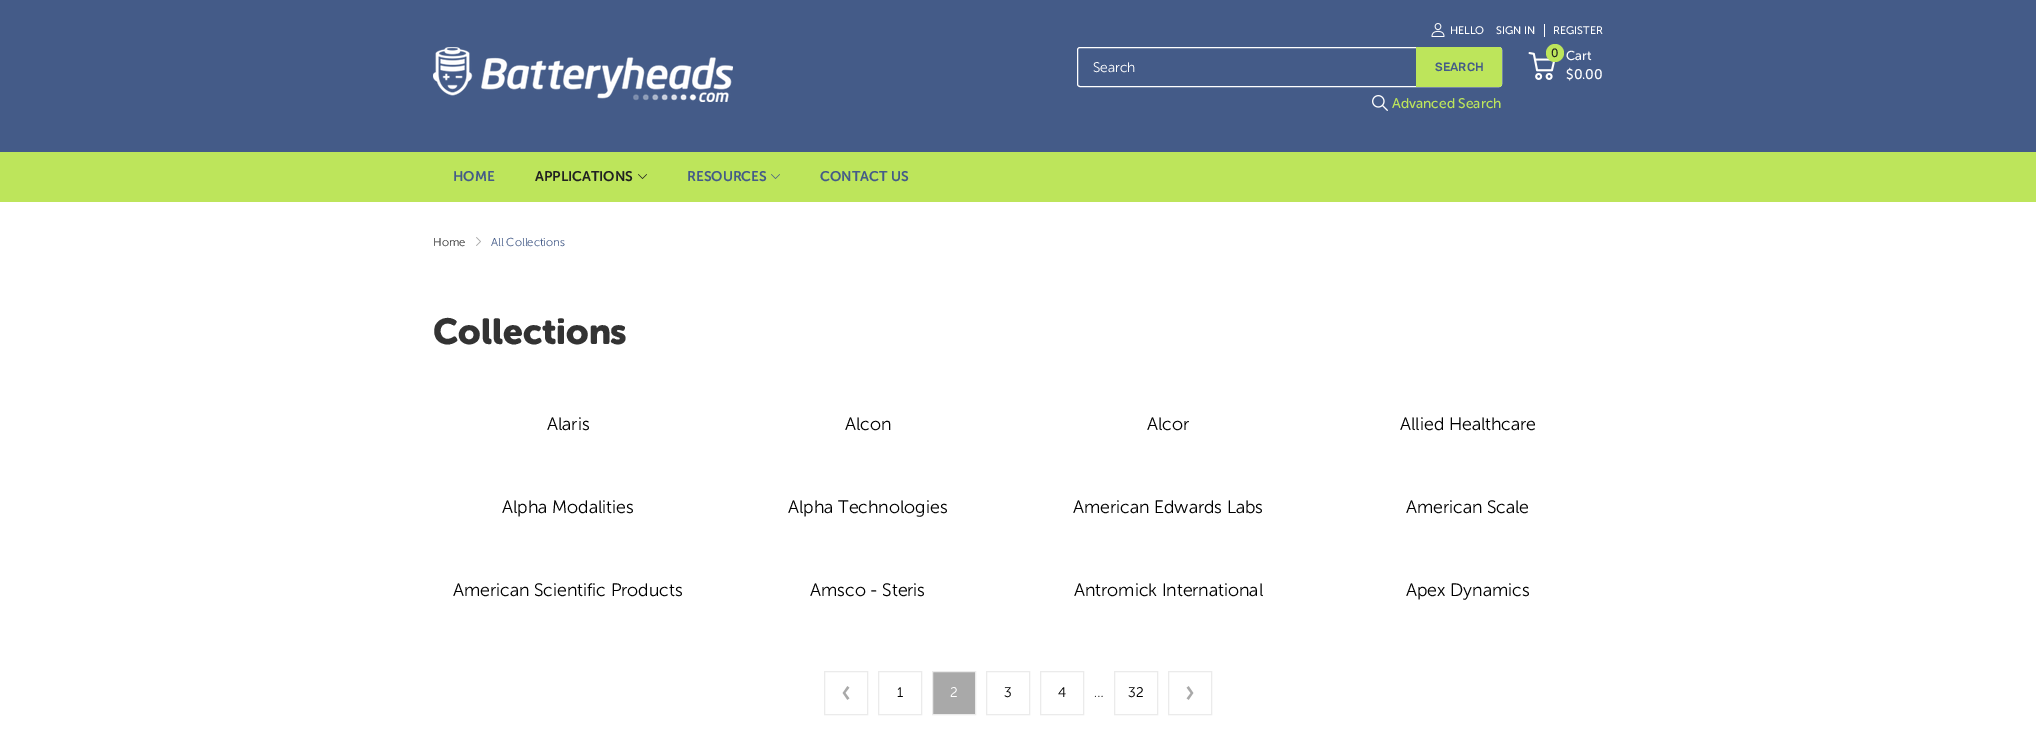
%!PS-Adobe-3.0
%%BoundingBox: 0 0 2036 749
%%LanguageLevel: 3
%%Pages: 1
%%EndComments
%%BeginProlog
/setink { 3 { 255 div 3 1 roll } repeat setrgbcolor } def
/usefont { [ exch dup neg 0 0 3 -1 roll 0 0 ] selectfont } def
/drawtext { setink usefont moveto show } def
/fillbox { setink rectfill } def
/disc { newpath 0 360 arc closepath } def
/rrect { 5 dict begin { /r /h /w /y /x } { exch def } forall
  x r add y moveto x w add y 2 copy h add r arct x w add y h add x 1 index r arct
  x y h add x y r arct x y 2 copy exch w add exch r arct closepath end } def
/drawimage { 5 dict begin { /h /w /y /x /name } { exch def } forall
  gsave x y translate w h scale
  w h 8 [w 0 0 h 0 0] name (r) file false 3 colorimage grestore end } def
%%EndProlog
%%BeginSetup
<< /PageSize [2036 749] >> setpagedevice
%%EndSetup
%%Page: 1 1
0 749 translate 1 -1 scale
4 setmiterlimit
0 0 2036 749 255 255 255 fillbox
0 0 2036 152 68 91 136 fillbox
(assets/img1.rgb) 1431 23 14 14 drawimage
(HELLO) 1450 34 /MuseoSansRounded-Regular 11 255 255 255 drawtext
(SIGN IN) 1496 34 /MuseoSansRounded-Regular 11 255 255 255 drawtext
(REGISTER) 1553 34 /MuseoSansRounded-Regular 11 255 255 255 drawtext
1544 24 1 13 255 255 255 fillbox
(assets/img2.rgb) 433 47 300 55 drawimage
1077.5 47.5 424 39 2.5 rrect stroke
(Search) 1093 72 /MuseoSansRounded-Light 14 255 255 255 drawtext
189 229 91 setink
1416 47 moveto 1499 47 lineto 1500.5 47 1502 48.5 1502 50 curveto 1502 84 lineto 1502 85.5 1500.5 87 1499 87 curveto 1416 87 lineto closepath fill
(SEARCH) 1435 71 /Rubik-Medium 12 68 91 136 drawtext
(assets/img3.rgb) 1372 95 16 16 drawimage
(Advanced Search) 1392 108 /MuseoSansRounded-Regular 14 189 229 91 drawtext
(assets/img4.rgb) 1528 52 28 28 drawimage
1555 53 9 disc fill
(0) 1551 57 /MuseoSansRounded-Regular 12 33 33 33 drawtext
(Cart) 1566 60 /MuseoSansRounded-Regular 13 255 255 255 drawtext
($0.00) 1566 79 /MuseoSansRounded-Regular 14 255 255 255 drawtext
0 152 2036 50 189 229 91 fillbox
(HOME) 453 181 /MuseoSansRounded-SemiBold 14 68 91 136 drawtext
(APPLICATIONS) 535 181 /MuseoSansRounded-SemiBold 14 33 33 33 drawtext
(assets/img5.rgb) 638 174 9 5 drawimage
(RESOURCES) 687 181 /MuseoSansRounded-SemiBold 14 68 91 136 drawtext
(assets/img6.rgb) 771 174 9 5 drawimage
(CONTACT US) 820 181 /MuseoSansRounded-SemiBold 14 68 91 136 drawtext
(Home) 433 246 /MuseoSansRounded-Light 11.5 51 51 51 drawtext
(assets/img7.rgb) 476 237 5 9 drawimage
(All Collections) 491 246 /MuseoSansRounded-Light 11.5 68 91 136 drawtext
(Collections) 433 344 /MuseoSansRounded-Bold 36 51 51 51 drawtext
(Alaris) 547 430 /MuseoSansRounded-Light 18 0 0 0 drawtext
(Alcon) 845 430 /MuseoSansRounded-Light 18 0 0 0 drawtext
(Alcor) 1147 430 /MuseoSansRounded-Light 18 0 0 0 drawtext
(Allied Healthcare) 1400 430 /MuseoSansRounded-Light 18 0 0 0 drawtext
(Alpha Modalities) 502 513 /MuseoSansRounded-Light 18 0 0 0 drawtext
(Alpha Technologies) 788 513 /MuseoSansRounded-Light 18 0 0 0 drawtext
(American Edwards Labs) 1073 513 /MuseoSansRounded-Light 18 0 0 0 drawtext
(American Scale) 1406 513 /MuseoSansRounded-Light 18 0 0 0 drawtext
(American Scientific Products) 453 596 /MuseoSansRounded-Light 18 0 0 0 drawtext
(Amsco - Steris) 810 596 /MuseoSansRounded-Light 18 0 0 0 drawtext
(Antromick International) 1074 596 /MuseoSansRounded-Light 18 0 0 0 drawtext
(Apex Dynamics) 1406 596 /MuseoSansRounded-Light 18 0 0 0 drawtext
235 235 235 setink
824.5 671.5 43 43 rectstroke
(assets/img8.rgb) 842 686 8 14 drawimage
878.5 671.5 43 43 rectstroke
(1) 897 697 /MuseoSansRounded-Light 14 0 0 0 drawtext
169 169 169 setink
932.5 671.5 moveto 975.5 671.5 lineto 975.5 714.5 lineto 932.5 714.5 lineto closepath gsave fill grestore
235 235 235 setink
stroke
(2) 950 697 /MuseoSansRounded-Light 14 255 255 255 drawtext
235 235 235 setink
986.5 671.5 43 43 rectstroke
(3) 1004 697 /MuseoSansRounded-Light 14 0 0 0 drawtext
235 235 235 setink
1040.5 671.5 43 43 rectstroke
(4) 1058 697 /MuseoSansRounded-Light 14 0 0 0 drawtext
(…) 1094 697 /MuseoSansRounded-Light 14 51 51 51 drawtext
235 235 235 setink
1114.5 671.5 43 43 rectstroke
(32) 1128 697 /MuseoSansRounded-Light 14 0 0 0 drawtext
235 235 235 setink
1168.5 671.5 43 43 rectstroke
(assets/img9.rgb) 1186 686 8 14 drawimage
showpage
%%EOF
